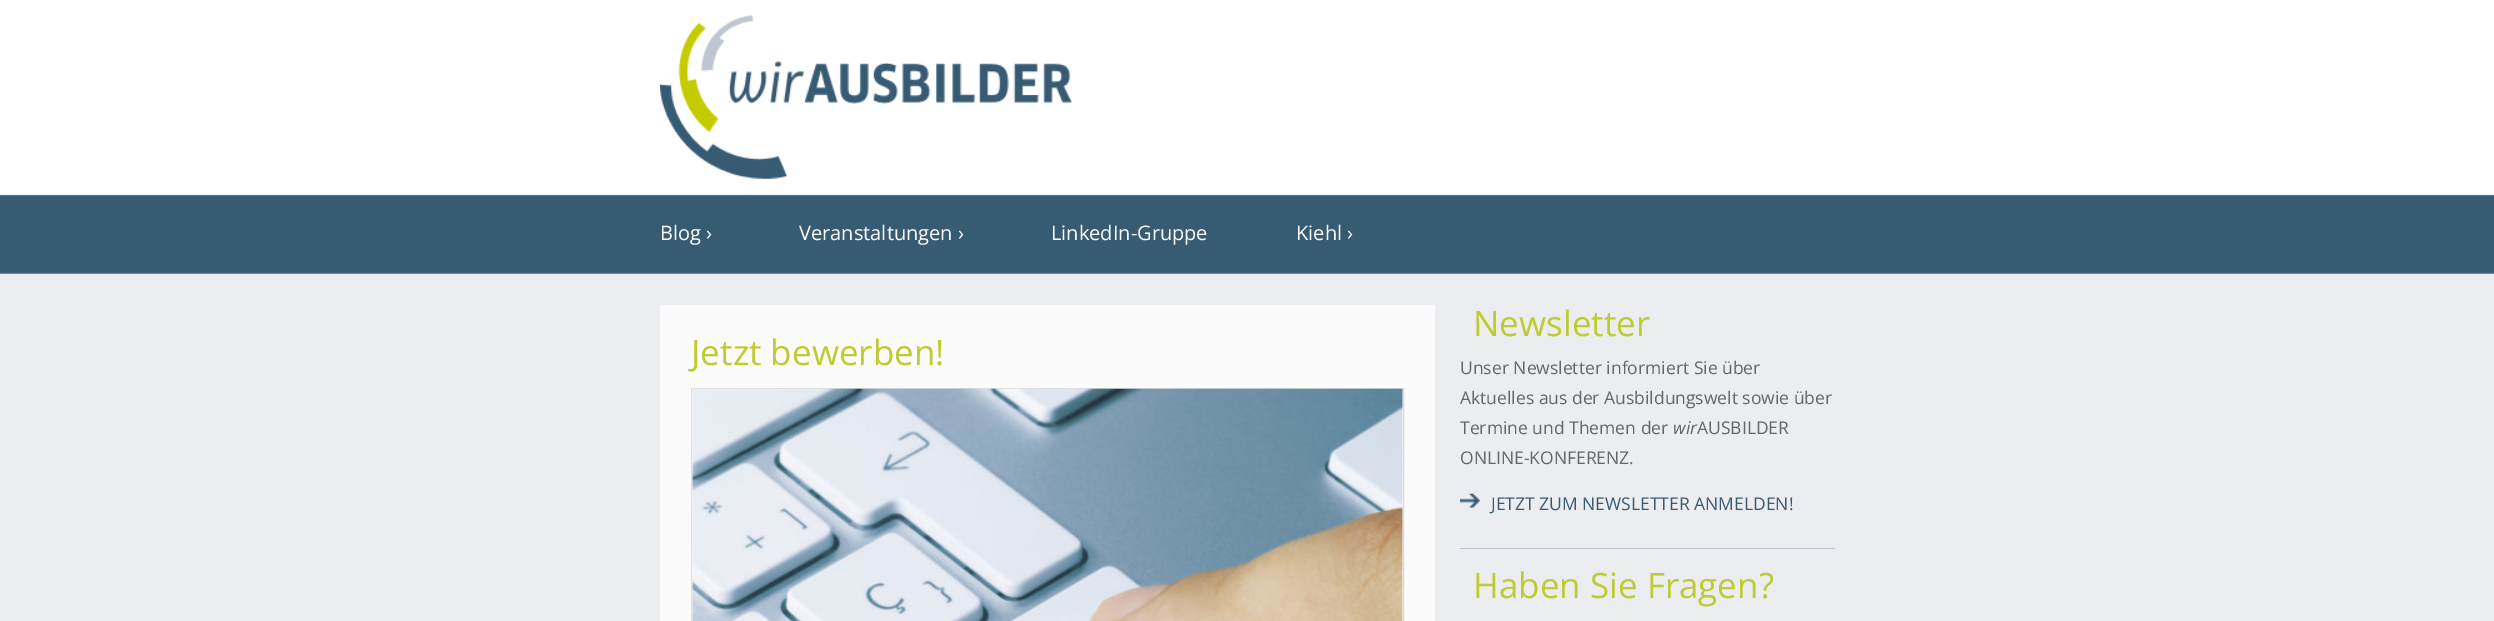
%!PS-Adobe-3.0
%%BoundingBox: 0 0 2494 621
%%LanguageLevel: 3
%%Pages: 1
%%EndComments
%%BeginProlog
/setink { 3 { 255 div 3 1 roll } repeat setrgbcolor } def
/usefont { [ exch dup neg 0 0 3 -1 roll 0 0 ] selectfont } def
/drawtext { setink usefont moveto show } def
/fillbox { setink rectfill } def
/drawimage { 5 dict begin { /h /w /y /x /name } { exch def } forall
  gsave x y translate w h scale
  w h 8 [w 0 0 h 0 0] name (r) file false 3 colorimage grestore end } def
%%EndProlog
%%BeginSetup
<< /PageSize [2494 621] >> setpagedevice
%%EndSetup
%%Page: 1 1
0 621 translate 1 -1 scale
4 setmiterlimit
0 0 2494 621 235 237 241 fillbox
(assets/img1.rgb) 0 0 2494 274 drawimage
(assets/img2.rgb) 660 15 413 164 drawimage
(Blog ›) 660 240 /OpenSans-Regular 20 255 255 255 drawtext
(Veranstaltungen ›) 799 240 /OpenSans-Regular 20 255 255 255 drawtext
(LinkedIn-Gruppe) 1051 240 /OpenSans-Regular 20 255 255 255 drawtext
(Kiehl ›) 1296 240 /OpenSans-Regular 20 255 255 255 drawtext
660 305 775 316 251 251 251 fillbox
(Jetzt bewerben!) 691 365 /OpenSans-Regular 35 190 203 49 drawtext
220 220 220 setink
691.5 388.5 712 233 rectstroke
(assets/img3.rgb) 692 388 711 233 drawimage
(Newsletter) 1473 336 /OpenSans-Regular 35 190 203 49 drawtext
(Unser Newsletter informiert Sie über) 1460 374 /OpenSans-Regular 17.5 102 102 102 drawtext
(Aktuelles aus der Ausbildungswelt sowie über) 1460 404 /OpenSans-Regular 17.5 102 102 102 drawtext
(Termine und Themen der) 1460 434 /OpenSans-Regular 17.5 102 102 102 drawtext
(wir) 1673 434 /OpenSans-Italic 17.5 102 102 102 drawtext
(AUSBILDER) 1697 434 /OpenSans-Regular 17.5 102 102 102 drawtext
(ONLINE-KONFERENZ.) 1460 464 /OpenSans-Regular 17.5 102 102 102 drawtext
(assets/img4.rgb) 1460 493 20 15 drawimage
(JETZT ZUM NEWSLETTER ANMELDEN!) 1491 510 /OpenSans-Regular 17.5 56 91 116 drawtext
1460 548 375 1 188 196 207 fillbox
(Haben Sie Fragen?) 1473 598 /OpenSans-Regular 35 190 203 49 drawtext
showpage
%%EOF
